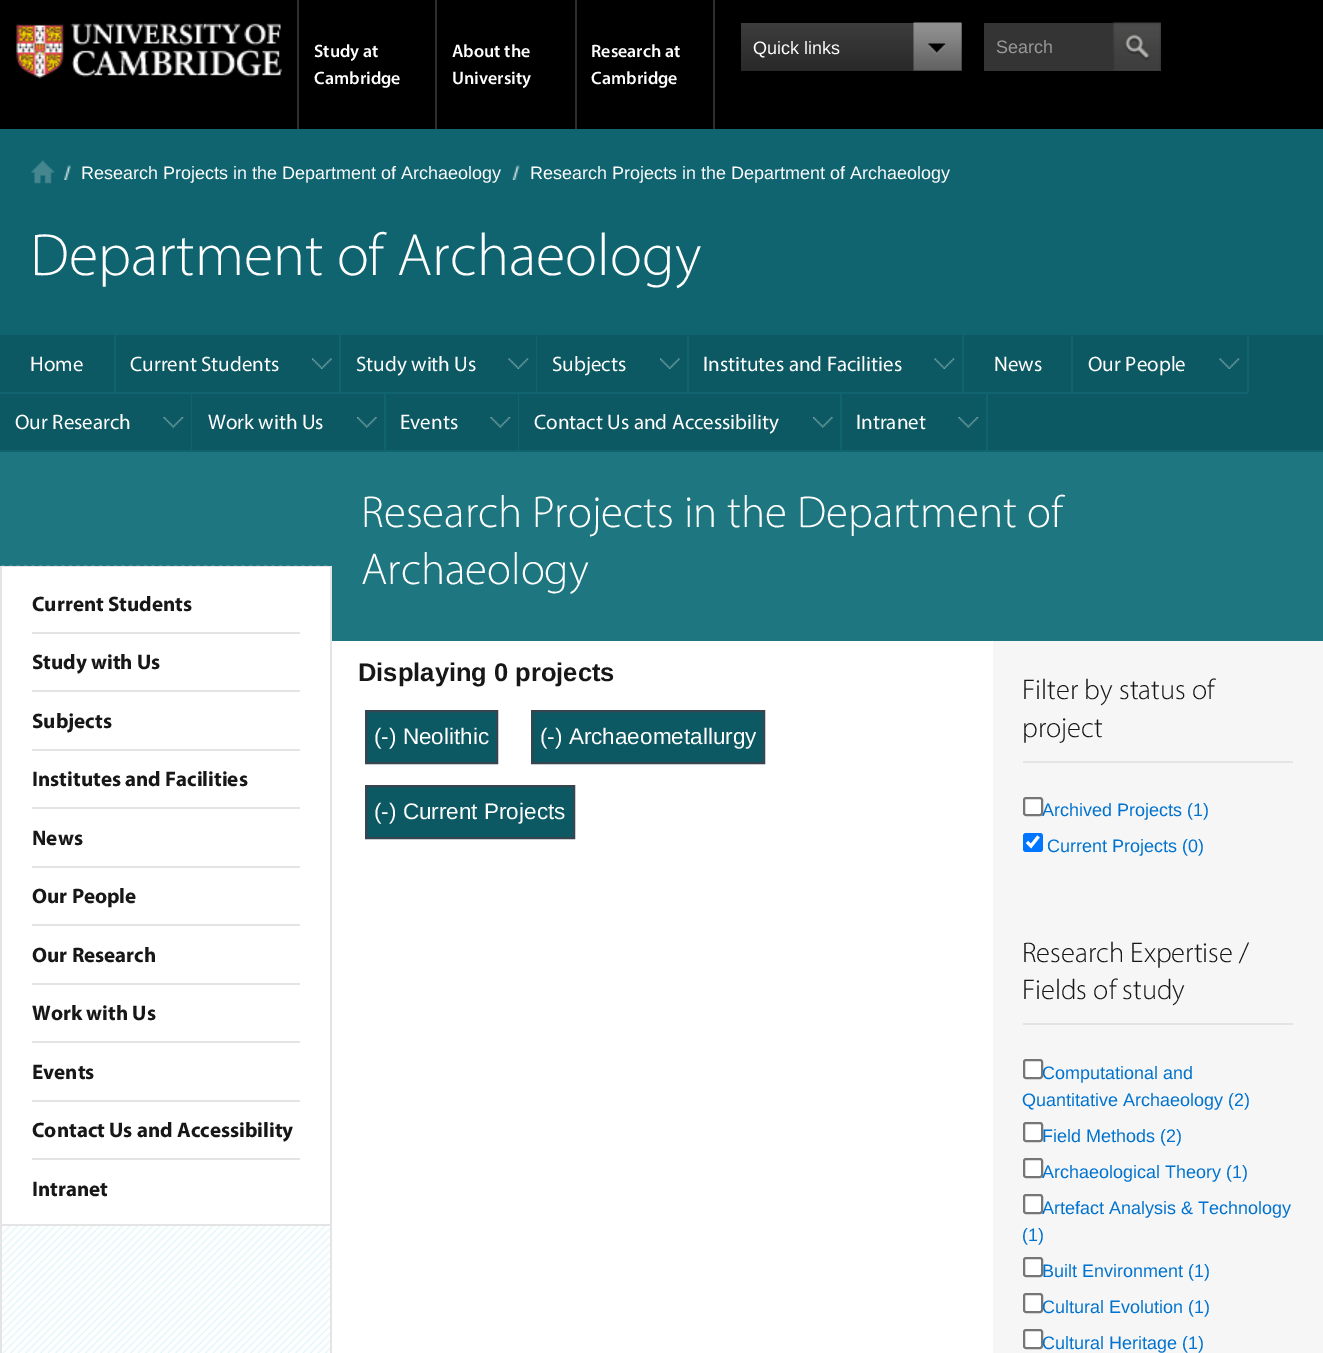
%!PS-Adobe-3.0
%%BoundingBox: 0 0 1323 1353
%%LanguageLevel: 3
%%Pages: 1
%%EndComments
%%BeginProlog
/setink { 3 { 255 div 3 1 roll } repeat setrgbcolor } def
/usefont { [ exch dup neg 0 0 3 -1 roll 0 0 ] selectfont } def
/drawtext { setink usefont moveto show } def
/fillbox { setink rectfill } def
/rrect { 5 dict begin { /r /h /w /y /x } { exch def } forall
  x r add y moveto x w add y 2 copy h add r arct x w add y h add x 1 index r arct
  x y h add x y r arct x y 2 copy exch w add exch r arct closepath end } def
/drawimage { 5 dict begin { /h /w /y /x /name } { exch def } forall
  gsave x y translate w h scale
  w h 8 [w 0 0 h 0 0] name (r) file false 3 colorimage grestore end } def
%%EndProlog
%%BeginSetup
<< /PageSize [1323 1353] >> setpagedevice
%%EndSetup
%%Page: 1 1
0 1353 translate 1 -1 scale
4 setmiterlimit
0 0 1323 1353 0 0 0 fillbox
(assets/img1.rgb) 16 23 266 56 drawimage
297 0 2 129 46 46 46 fillbox
435 0 2 129 46 46 46 fillbox
(Study at) 314 57 /Myriad-SemiBold 18 255 255 255 drawtext
(Cambridge) 314 84 /Myriad-SemiBold 18 255 255 255 drawtext
575 0 2 129 46 46 46 fillbox
(About the) 452 57 /Myriad-SemiBold 18 255 255 255 drawtext
(University) 452 84 /Myriad-SemiBold 18 255 255 255 drawtext
713 0 2 129 46 46 46 fillbox
(Research at) 591 57 /Myriad-SemiBold 18 255 255 255 drawtext
(Cambridge) 591 84 /Myriad-SemiBold 18 255 255 255 drawtext
gsave 741 23 moveto 962 23 lineto 962 71 lineto 741 71 lineto closepath clip newpath
<< /ShadingType 2 /ColorSpace /DeviceRGB /Coords [851 22 851 71] /Extend [true true] /Function << /FunctionType 2 /Domain [0 1] /C0 [0.239 0.239 0.239] /C1 [0.161 0.161 0.161] /N 1 >> >> shfill grestore
(Quick links) 753 54 /LiberationSans-Regular 18 255 255 255 drawtext
(assets/img2.rgb) 913 22 49 49 drawimage
984 23 129 48 52 52 52 fillbox
(Search) 996 53 /LiberationSans-Regular 18 153 153 153 drawtext
1113 70 48 1 52 52 52 fillbox
(assets/img3.rgb) 1113 22 48 49 drawimage
0 129 1323 204 16 100 112 fillbox
(assets/img4.rgb) 31 160 24 24 drawimage
(assets/img5.rgb) 64 165 7 15 drawimage
(Research Projects in the Department of Archaeology) 81 179 /LiberationSans-Regular 18 255 255 255 drawtext
(assets/img6.rgb) 512 165 8 15 drawimage
(Research Projects in the Department of Archaeology) 530 179 /LiberationSans-Regular 18 255 255 255 drawtext
(Department of Archaeology) 30 275 /Myriad-Light 60 255 255 255 drawtext
988 335 335 115 12 89 99 fillbox
1249 333 74 2 16 100 112 fillbox
988 450 335 2 16 100 112 fillbox
0 335 114 57 12 89 99 fillbox
0 333 689 2 16 100 112 fillbox
114 333 2 60 16 100 112 fillbox
(Home) 30 371 /Myriad-Regular 21 255 255 255 drawtext
116 335 223 57 12 89 99 fillbox
(assets/img7.rgb) 312 358 20 11 drawimage
339 333 2 60 16 100 112 fillbox
(Current Students) 130 371 /Myriad-Regular 21 255 255 255 drawtext
341 335 195 57 12 89 99 fillbox
(assets/img8.rgb) 508 358 21 11 drawimage
536 333 1 60 16 100 112 fillbox
(Study with Us) 356 371 /Myriad-Regular 21 255 255 255 drawtext
537 335 150 57 12 89 99 fillbox
(assets/img9.rgb) 660 358 20 11 drawimage
687 333 2 60 16 100 112 fillbox
(Subjects) 552 371 /Myriad-Regular 21 255 255 255 drawtext
689 335 273 57 12 89 99 fillbox
(assets/img8.rgb) 934 358 21 11 drawimage
689 333 559 2 16 100 112 fillbox
962 333 2 60 16 100 112 fillbox
(Institutes and Facilities) 703 371 /Myriad-Regular 21 255 255 255 drawtext
964 335 24 57 12 89 99 fillbox
1071 333 2 60 16 100 112 fillbox
988 392 85 2 16 100 112 fillbox
(News) 994 371 /Myriad-Regular 21 255 255 255 drawtext
(assets/img8.rgb) 1219 358 21 11 drawimage
1247 333 2 60 16 100 112 fillbox
1073 392 175 2 16 100 112 fillbox
(Our People) 1088 371 /Myriad-Regular 21 255 255 255 drawtext
0 394 191 56 12 89 99 fillbox
(assets/img10.rgb) 163 417 21 11 drawimage
0 392 987 2 16 100 112 fillbox
191 392 1 60 16 100 112 fillbox
0 450 192 2 16 100 112 fillbox
(Our Research) 15 429 /Myriad-Regular 21 255 255 255 drawtext
192 394 192 56 12 89 99 fillbox
(assets/img11.rgb) 357 417 20 11 drawimage
384 392 2 60 16 100 112 fillbox
192 450 194 2 16 100 112 fillbox
(Work with Us) 208 429 /Myriad-Regular 21 255 255 255 drawtext
386 394 132 56 12 89 99 fillbox
(assets/img10.rgb) 490 417 21 11 drawimage
518 392 1 60 16 100 112 fillbox
386 450 133 2 16 100 112 fillbox
(Events) 400 429 /Myriad-Regular 21 255 255 255 drawtext
519 394 321 56 12 89 99 fillbox
(assets/img12.rgb) 813 417 20 11 drawimage
840 392 2 60 16 100 112 fillbox
519 450 323 2 16 100 112 fillbox
(Contact Us and Accessibility) 534 429 /Myriad-Regular 21 255 255 255 drawtext
842 394 144 56 12 89 99 fillbox
(assets/img10.rgb) 958 417 21 11 drawimage
986 392 2 60 16 100 112 fillbox
842 450 145 2 16 100 112 fillbox
(Intranet) 856 429 /Myriad-Regular 21 255 255 255 drawtext
0 452 1323 189 30 118 128 fillbox
(Research Projects in the Department of) 361 527 /Myriad-Light 45 255 255 255 drawtext
(Archaeology) 361 584 /Myriad-Light 45 255 255 255 drawtext
2 641 991 712 255 255 255 fillbox
(assets/img13.rgb) 1 565 331 788 drawimage
0 566 332 1 228 228 228 fillbox
330 566 2 787 228 228 228 fillbox
0 566 2 787 228 228 228 fillbox
2 567 328 657 255 255 255 fillbox
2 1224 328 2 228 228 228 fillbox
32 632 268 2 228 228 228 fillbox
(Current Students) 32 611 /Myriad-Bold 21 23 23 23 drawtext
32 690 268 2 228 228 228 fillbox
(Study with Us) 32 669 /Myriad-Bold 21 23 23 23 drawtext
32 749 268 2 228 228 228 fillbox
(Subjects) 32 728 /Myriad-Bold 21 23 23 23 drawtext
32 807 268 2 228 228 228 fillbox
(Institutes and Facilities) 32 786 /Myriad-Bold 21 23 23 23 drawtext
32 866 268 2 228 228 228 fillbox
(News) 32 845 /Myriad-Bold 21 23 23 23 drawtext
32 924 268 2 228 228 228 fillbox
(Our People) 32 903 /Myriad-Bold 21 23 23 23 drawtext
32 983 268 2 228 228 228 fillbox
(Our Research) 32 962 /Myriad-Bold 21 23 23 23 drawtext
32 1041 268 2 228 228 228 fillbox
(Work with Us) 32 1020 /Myriad-Bold 21 23 23 23 drawtext
32 1100 268 2 228 228 228 fillbox
(Events) 32 1079 /Myriad-Bold 21 23 23 23 drawtext
32 1158 268 2 228 228 228 fillbox
(Contact Us and Accessibility) 32 1137 /Myriad-Bold 21 23 23 23 drawtext
(Intranet) 32 1196 /Myriad-Bold 21 23 23 23 drawtext
(Displaying 0 projects) 358 681 /LiberationSans-Bold 25.5 23 23 23 drawtext
12 89 99 setink
366 711 moveto 497 711 lineto 497 763 lineto 366 763 lineto closepath gsave fill grestore
54 69 79 setink
2 setlinewidth
stroke
(\(-\) Neolithic) 374 744 /LiberationSans-Regular 22.5 255 255 255 drawtext
12 89 99 setink
532 711 moveto 764 711 lineto 764 763 lineto 532 763 lineto closepath gsave fill grestore
54 69 79 setink
stroke
(\(-\) Archaeometallurgy) 540 744 /LiberationSans-Regular 22.5 255 255 255 drawtext
12 89 99 setink
366 786 moveto 574 786 lineto 574 838 lineto 366 838 lineto closepath gsave fill grestore
54 69 79 setink
stroke
(\(-\) Current Projects) 374 819 /LiberationSans-Regular 22.5 255 255 255 drawtext
993 641 330 712 246 246 246 fillbox
1023 761 270 2 228 228 228 fillbox
(Filter by status of) 1022 699 /Myriad-Light 28.5 23 23 23 drawtext
(project) 1022 737 /Myriad-Light 28.5 23 23 23 drawtext
255 255 255 setink
1024 798 18 17 2 rrect gsave fill grestore
118 118 118 setink
stroke
(Archived Projects \(1\)) 1042 816 /LiberationSans-Regular 18 0 114 207 drawtext
0 117 255 setink
1023 833 20 19 3 rrect fill
255 255 255 setink
3.1 setlinewidth
1027 842 moveto 1031 846 lineto 1038.5 836.5 lineto stroke
(Current Projects \(0\)) 1047 852 /LiberationSans-Regular 18 0 114 207 drawtext
1023 1023 270 2 228 228 228 fillbox
(Research Expertise /) 1022 962 /Myriad-Light 28.5 23 23 23 drawtext
(Fields of study) 1022 999 /Myriad-Light 28.5 23 23 23 drawtext
255 255 255 setink
1024 1060 18 18 2 rrect gsave fill grestore
118 118 118 setink
2 setlinewidth
stroke
(Computational and) 1042 1079 /LiberationSans-Regular 18 0 114 207 drawtext
(Quantitative Archaeology \(2\)) 1022 1106 /LiberationSans-Regular 18 0 114 207 drawtext
255 255 255 setink
1024 1123 18 18 2 rrect gsave fill grestore
118 118 118 setink
stroke
(Field Methods \(2\)) 1042 1142 /LiberationSans-Regular 18 0 114 207 drawtext
255 255 255 setink
1024 1159 18 18 2 rrect gsave fill grestore
118 118 118 setink
stroke
(Archaeological Theory \(1\)) 1042 1178 /LiberationSans-Regular 18 0 114 207 drawtext
255 255 255 setink
1024 1195 18 18 2 rrect gsave fill grestore
118 118 118 setink
stroke
(Artefact Analysis & Technology) 1042 1214 /LiberationSans-Regular 18 0 114 207 drawtext
(\(1\)) 1022 1241 /LiberationSans-Regular 18 0 114 207 drawtext
255 255 255 setink
1024 1258 18 18 2 rrect gsave fill grestore
118 118 118 setink
stroke
(Built Environment \(1\)) 1042 1277 /LiberationSans-Regular 18 0 114 207 drawtext
255 255 255 setink
1024 1294 18 18 2 rrect gsave fill grestore
118 118 118 setink
stroke
(Cultural Evolution \(1\)) 1042 1313 /LiberationSans-Regular 18 0 114 207 drawtext
255 255 255 setink
1024 1330 18 18 2 rrect gsave fill grestore
118 118 118 setink
stroke
(Cultural Heritage \(1\)) 1042 1349 /LiberationSans-Regular 18 0 114 207 drawtext
showpage
%%EOF
